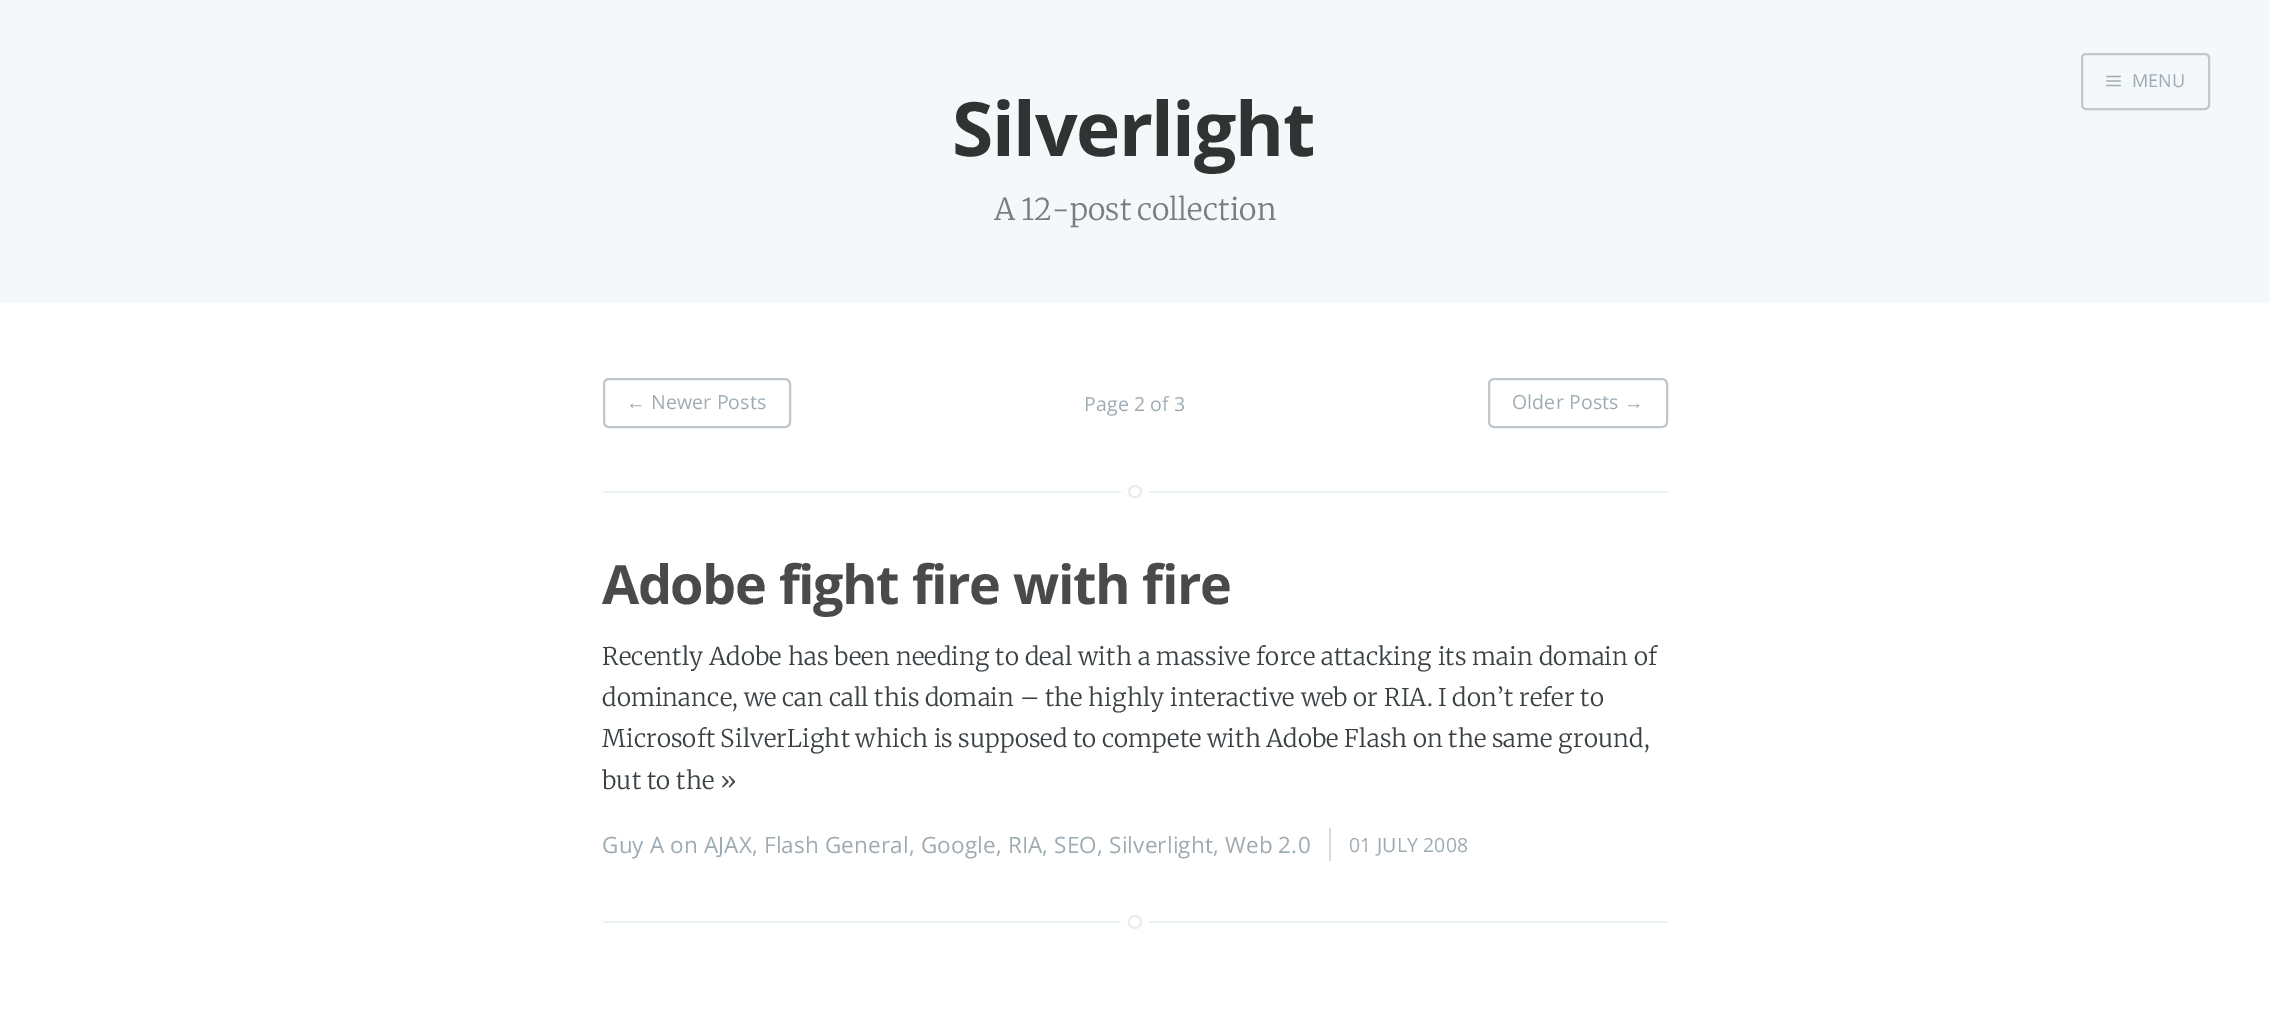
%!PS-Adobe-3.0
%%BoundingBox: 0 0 2269 1009
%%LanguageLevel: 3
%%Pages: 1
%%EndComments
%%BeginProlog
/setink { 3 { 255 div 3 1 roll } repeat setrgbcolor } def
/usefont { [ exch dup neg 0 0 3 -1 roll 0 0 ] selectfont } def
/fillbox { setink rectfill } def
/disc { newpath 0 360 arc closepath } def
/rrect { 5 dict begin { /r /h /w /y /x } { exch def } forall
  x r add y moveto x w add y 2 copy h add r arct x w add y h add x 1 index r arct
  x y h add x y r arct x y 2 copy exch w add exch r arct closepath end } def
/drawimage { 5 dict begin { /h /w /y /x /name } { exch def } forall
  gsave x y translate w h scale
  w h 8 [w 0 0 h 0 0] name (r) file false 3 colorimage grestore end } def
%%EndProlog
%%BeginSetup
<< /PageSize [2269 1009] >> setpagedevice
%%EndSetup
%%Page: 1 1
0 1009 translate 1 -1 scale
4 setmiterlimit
0 0 2269 1009 255 255 255 fillbox
0 0 2269 303 245 248 250 fillbox
191 200 205 setink
2 setlinewidth
2082 54 127 55 4 rrect stroke
(assets/img1.rgb) 2106 75 15 12 drawimage
/OpenSans-Regular 18 usefont
158 171 179 setink
2132 87 moveto 0.15 0 (MENU) ashow
/OpenSans-Bold 75 usefont
49 50 50 setink
952 156 moveto -1.5 0 (Silverlight) ashow
/Merriweather-Light 30 usefont
123 124 125 setink
994 220 moveto -2 0 32 0.15 0 (A 12-post collection) awidthshow
603 491 1065 2 235 242 246 fillbox
191 200 205 setink
604 379 186 48 5 rrect stroke
/LiberationSans-Regular 19.5 usefont
158 171 179 setink
626 409 moveto 0.15 0 (←) ashow
/OpenSans-Regular 19.5 usefont
651 409 moveto 0.15 0 (Newer Posts) ashow
1084 411 moveto 0.15 0 (Page 2 of 3) ashow
191 200 205 setink
1489 379 178 48 5 rrect stroke
158 171 179 setink
1512 409 moveto 0.15 0 (Older Posts) ashow
/LiberationSans-Regular 19.5 usefont
1624 409 moveto 0.15 0 (→) ashow
255 255 255 setink
8 setlinewidth
1125 481 20 21 10 rrect stroke
1129 486 12 11 5.5 rrect gsave fill grestore
231 238 242 setink
2 setlinewidth
stroke
603 921 1065 2 235 242 246 fillbox
/OpenSans-Bold 54 usefont
74 74 74 setink
602 604 moveto 1 0 32 -1.5 0 (Adobe fight fire with fire) awidthshow
/Merriweather-Light 24.3 usefont
58 65 69 setink
602 665 moveto 0.15 0 (Recently Adobe has been needing to deal with a massive force attacking its main domain of) ashow
602 706 moveto -0.4 0 32 0.15 0 (dominance, we can call this domain – the highly interactive web or RIA. I don’t refer to) awidthshow
602 747 moveto -0.5 0 32 0.15 0 (Microsoft SilverLight which is supposed to compete with Adobe Flash on the same ground,) awidthshow
602 789 moveto 0.15 0 (but to the) ashow
74 74 74 setink
720 789 moveto 0.15 0 (») ashow
/OpenSans-Regular 22.5 usefont
158 171 179 setink
602 853 moveto 0.15 0 (Guy A on AJAX, Flash General, Google, RIA, SEO, Silverlight, Web 2.0) ashow
1329 828 2 33 213 219 222 fillbox
/OpenSans-Regular 19.5 usefont
158 171 179 setink
1349 852 moveto 0.15 0 (01 JULY 2008) ashow
255 255 255 setink
8 setlinewidth
1135 922 10 disc stroke
1135 922 6 disc gsave fill grestore
231 238 242 setink
2 setlinewidth
stroke
showpage
%%EOF
